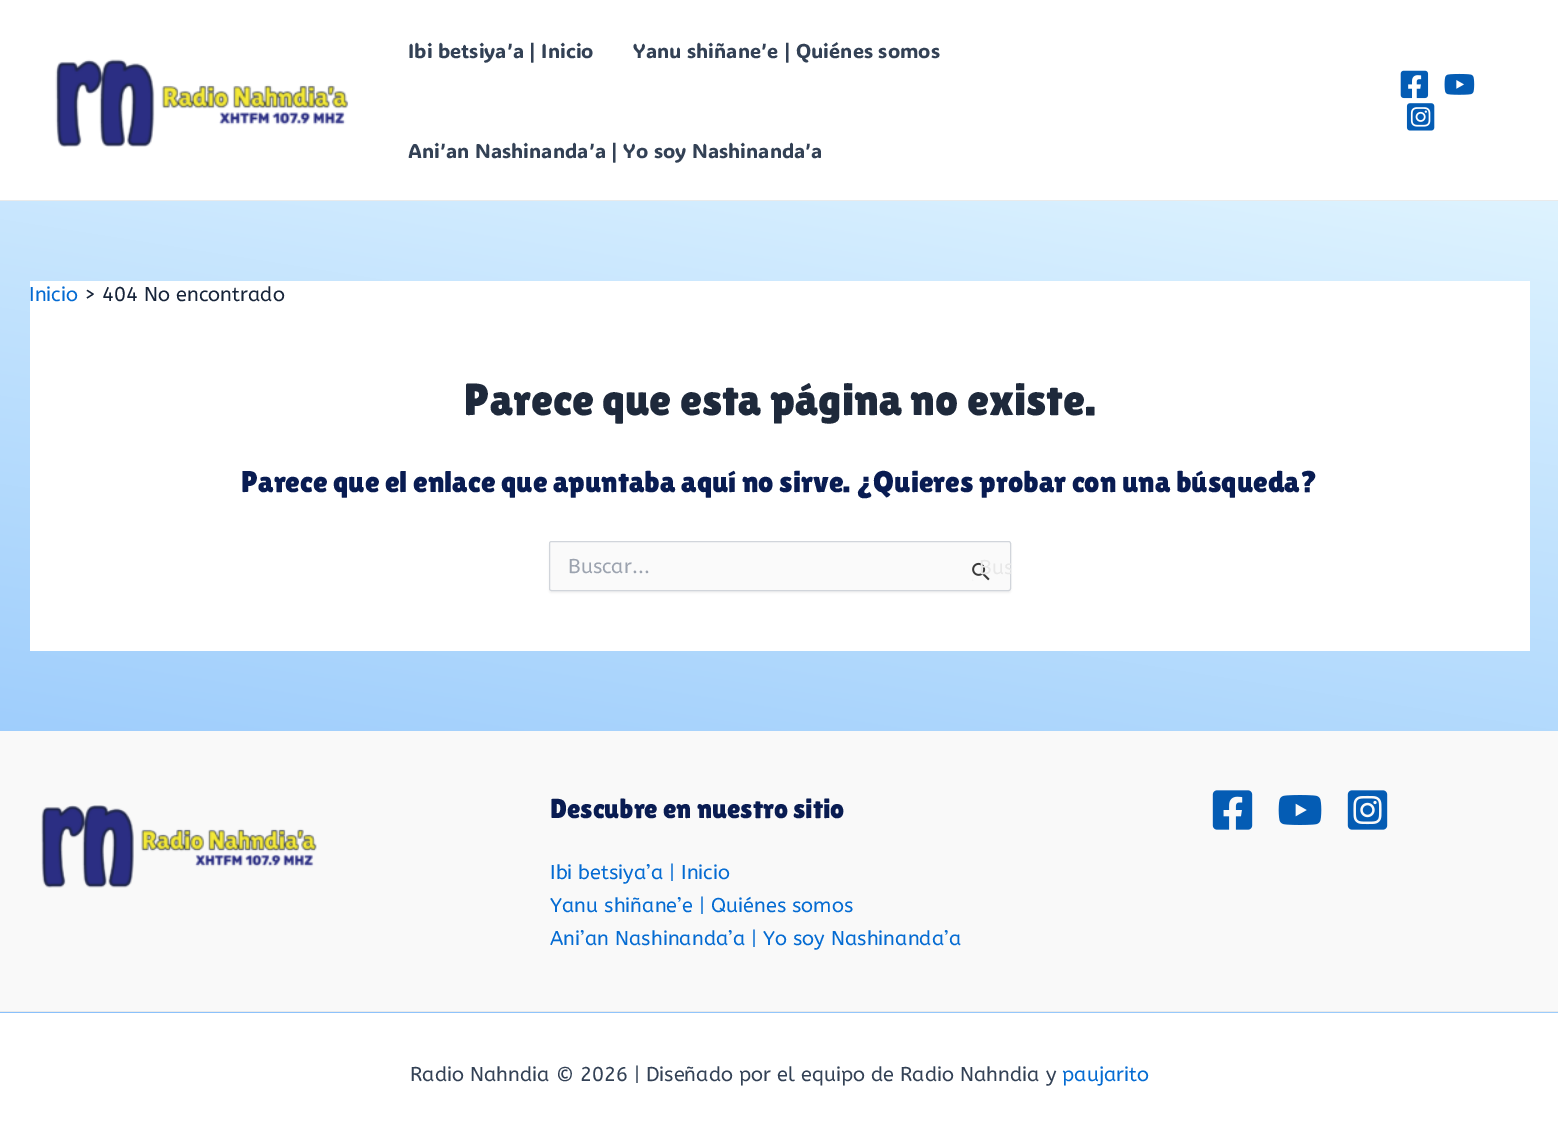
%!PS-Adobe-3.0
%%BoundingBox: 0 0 1558 1131
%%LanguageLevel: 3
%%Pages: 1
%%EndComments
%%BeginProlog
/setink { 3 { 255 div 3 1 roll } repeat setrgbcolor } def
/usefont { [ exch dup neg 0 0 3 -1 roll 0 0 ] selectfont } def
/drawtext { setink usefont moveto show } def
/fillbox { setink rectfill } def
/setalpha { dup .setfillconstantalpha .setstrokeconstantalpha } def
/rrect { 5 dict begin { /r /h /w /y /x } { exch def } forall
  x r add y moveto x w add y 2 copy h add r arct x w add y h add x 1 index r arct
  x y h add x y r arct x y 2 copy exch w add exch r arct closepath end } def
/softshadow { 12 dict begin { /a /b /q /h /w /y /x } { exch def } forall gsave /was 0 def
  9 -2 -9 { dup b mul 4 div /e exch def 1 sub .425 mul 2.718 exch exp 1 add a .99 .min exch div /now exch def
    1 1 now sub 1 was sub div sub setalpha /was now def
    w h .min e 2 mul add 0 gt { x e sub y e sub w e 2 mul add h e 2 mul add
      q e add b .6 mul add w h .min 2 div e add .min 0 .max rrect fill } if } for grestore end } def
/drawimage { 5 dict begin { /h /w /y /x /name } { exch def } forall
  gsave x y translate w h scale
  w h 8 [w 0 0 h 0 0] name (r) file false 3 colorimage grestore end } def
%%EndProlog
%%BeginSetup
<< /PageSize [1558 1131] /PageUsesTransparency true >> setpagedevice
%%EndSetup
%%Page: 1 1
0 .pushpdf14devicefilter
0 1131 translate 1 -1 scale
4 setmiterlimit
0 0 1558 1131 255 255 255 fillbox
gsave 0 201 moveto 1558 201 lineto 1558 1013 lineto 0 1013 lineto closepath clip newpath
<< /ShadingType 2 /ColorSpace /DeviceRGB /Coords [886 -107 672 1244] /Extend [true true] /Function << /FunctionType 3 /Domain [0 1] /Functions [<< /FunctionType 2 /Domain [0 1] /C0 [0.929 0.988 1] /C1 [0.929 0.988 1] /N 1 >> << /FunctionType 2 /Domain [0 1] /C0 [0.929 0.988 1] /C1 [0.514 0.741 0.984] /N 1 >> << /FunctionType 2 /Domain [0 1] /C0 [0.514 0.741 0.984] /C1 [0.514 0.741 0.984] /N 1 >>] /Bounds [0.01 0.96] /Encode [0 1 0 1 0 1] >> >> shfill grestore
0 200 1558 1 234 234 234 fillbox
(assets/img1.rgb) 55 59 294 88 drawimage
(Ibi betsiya’a | Inicio) 408 58 /ADLaMDisplay-Regular 20 51 65 85 drawtext
(Yanu shiñane’e | Quiénes somos) 633 58 /ADLaMDisplay-Regular 20 51 65 85 drawtext
(Ani’an Nashinanda’a | Yo soy Nashinanda’a) 408 158 /ADLaMDisplay-Regular 20 51 65 85 drawtext
(assets/img2.rgb) 1400 70 29 29 drawimage
(assets/img3.rgb) 1444 73 31 22 drawimage
(assets/img4.rgb) 1406 103 29 28 drawimage
30 281 1500 370 255 255 255 fillbox
(Inicio) 29 301 /ABeeZee-Regular 20 4 107 210 drawtext
(> 404 No encontrado) 84 301 /ABeeZee-Regular 20 23 36 57 drawtext
(Parece que esta página no existe.) 464 415 /LilitaOne-Regular 45 30 41 59 drawtext
(Parece que el enlace que apuntaba aquí no sirve. ¿Quieres probar con una búsqueda?) 241 492 /LilitaOne-Regular 30 9 28 82 drawtext
0 0 0 setink
549 543 462 50 2.5 1 0.05 softshadow
250 250 250 setink
549.5 541.5 461 49 2 rrect gsave fill grestore
209 213 219 setink
stroke
(Buscar...) 568 573 /ABeeZee-Regular 20 156 163 175 drawtext
(assets/img5.rgb) 972 562 18 19 drawimage
gsave
955 541 56 53 2.5 rrect clip newpath
(Bus) 979 574 /ABeeZee-Regular 20 232 232 232 drawtext
grestore
0 731 1558 280 249 249 249 fillbox
(assets/img6.rgb) 41 805 276 83 drawimage
(Descubre en nuestro sitio) 550 818 /LilitaOne-Regular 27.5 9 28 82 drawtext
(Ibi betsiya’a | Inicio) 550 879 /ABeeZee-Regular 20 4 107 210 drawtext
(Yanu shiñane’e | Quiénes somos) 550 912 /ABeeZee-Regular 20 4 107 210 drawtext
(Ani’an Nashinanda’a | Yo soy Nashinanda’a) 550 945 /ABeeZee-Regular 20 4 107 210 drawtext
(assets/img7.rgb) 1212 790 41 40 drawimage
(assets/img8.rgb) 1278 795 44 30 drawimage
(assets/img9.rgb) 1347 790 41 40 drawimage
0 1011 1558 1 234 234 234 fillbox
(Radio Nahndia © 2026 | Diseñado por el equipo de Radio Nahndia y) 410 1081 /ABeeZee-Regular 20 51 65 85 drawtext
(paujarito) 1062 1081 /ABeeZee-Regular 20 4 107 210 drawtext
.poppdf14devicefilter showpage
%%EOF
